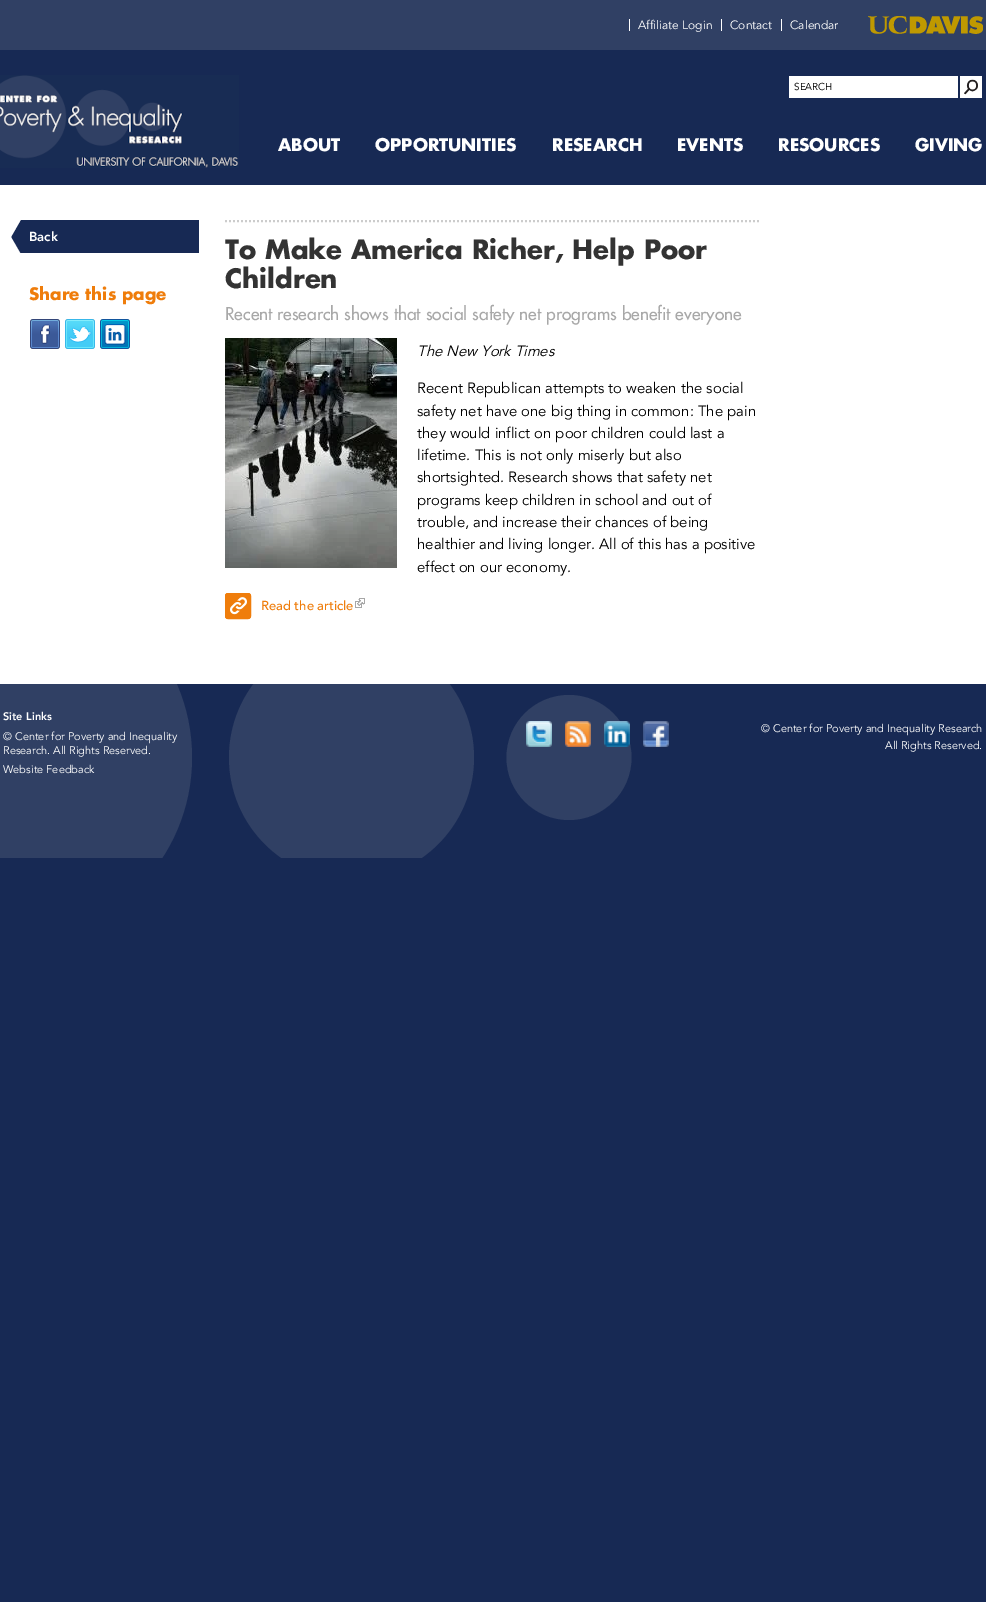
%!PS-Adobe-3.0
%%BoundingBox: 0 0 986 1602
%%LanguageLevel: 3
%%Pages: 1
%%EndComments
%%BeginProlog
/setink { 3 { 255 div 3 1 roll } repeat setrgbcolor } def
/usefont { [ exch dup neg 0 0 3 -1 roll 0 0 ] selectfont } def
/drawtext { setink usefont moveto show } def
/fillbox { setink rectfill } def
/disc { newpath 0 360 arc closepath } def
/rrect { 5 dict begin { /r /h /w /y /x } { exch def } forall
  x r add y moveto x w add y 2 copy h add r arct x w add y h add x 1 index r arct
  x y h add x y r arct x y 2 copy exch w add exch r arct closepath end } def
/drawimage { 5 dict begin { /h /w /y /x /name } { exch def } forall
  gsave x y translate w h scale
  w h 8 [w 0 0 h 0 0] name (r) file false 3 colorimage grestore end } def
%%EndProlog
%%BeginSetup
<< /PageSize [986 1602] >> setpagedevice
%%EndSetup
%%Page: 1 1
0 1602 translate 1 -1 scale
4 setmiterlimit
0 0 986 1602 23 41 84 fillbox
0 0 986 50 48 64 100 fillbox
629 19 1 12 255 255 255 fillbox
(Affiliate Login) 638 29 /Avenir-Regular 12 255 255 255 drawtext
721 19 1 12 255 255 255 fillbox
(Contact) 730 29 /Avenir-Regular 12 255 255 255 drawtext
781 19 1 12 255 255 255 fillbox
(Calendar) 790 29 /Avenir-Regular 12 255 255 255 drawtext
(assets/img1.rgb) 868 16 115 18 drawimage
0 185 986 499 255 255 255 fillbox
(assets/img2.rgb) 0 75 239 93 drawimage
789 76 169 22 255 255 255 fillbox
(SEARCH) 794 90 /Avenir-Regular 10 0 0 0 drawtext
960 76 22 22 255 255 255 fillbox
(assets/img3.rgb) 964 79 14 16 drawimage
(ABOUT) 278 151 /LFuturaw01-BoldItalic 17 255 255 255 drawtext
(OPPORTUNITIES) 375 151 /LFuturaw01-BoldItalic 17 255 255 255 drawtext
(RESEARCH) 552 151 /LFuturaw01-BoldItalic 17 255 255 255 drawtext
(EVENTS) 677 151 /LFuturaw01-BoldItalic 17 255 255 255 drawtext
(RESOURCES) 778 151 /LFuturaw01-BoldItalic 17 255 255 255 drawtext
(GIVING) 915 151 /LFuturaw01-BoldItalic 17 255 255 255 drawtext
11 220 188 33 23 41 84 fillbox
gsave
9 220 34 33 rectclip
255 255 255 setink
43 181 moveto -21 181 lineto -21 293 lineto 43 293 lineto 11 237 lineto closepath fill
grestore
(Back) 29 241 /Avenir-Black 13 255 255 255 drawtext
(Share this page) 29 300 /LFuturaw01-BoldItalic 16.75 239 125 11 drawtext
(assets/img4.rgb) 30 319 30 30 drawimage
(assets/img5.rgb) 65 319 30 30 drawimage
(assets/img6.rgb) 100 319 30 30 drawimage
204 204 204 setink
2 setlinewidth
[2 2] 0 setdash
225 221 moveto 761 221 lineto stroke
(To Make America Richer, Help Poor) 225 259 /LFuturaw01-BoldItalic 26 51 51 51 drawtext
(Children) 225 288 /LFuturaw01-BoldItalic 26 51 51 51 drawtext
(Recent research shows that social safety net programs benefit everyone) 225 320 /LFuturaw01-MediumItalic 17.35 168 168 168 drawtext
(assets/img7.rgb) 225 338 172 230 drawimage
(The New York Times) 417 356 /Avenir-Italic 14.9 0 0 0 drawtext
(Recent Republican attempts to weaken the social) 417 393 /Avenir-Regular 14.9 0 0 0 drawtext
(safety net have one big thing in common: The pain) 417 416 /Avenir-Regular 14.9 0 0 0 drawtext
(they would inflict on poor children could last a) 417 438 /Avenir-Regular 14.9 0 0 0 drawtext
(lifetime. This is not only miserly but also) 417 460 /Avenir-Regular 14.9 0 0 0 drawtext
(shortsighted. Research shows that safety net) 417 482 /Avenir-Regular 14.9 0 0 0 drawtext
(programs keep children in school and out of) 417 505 /Avenir-Regular 14.9 0 0 0 drawtext
(trouble, and increase their chances of being) 417 527 /Avenir-Regular 14.9 0 0 0 drawtext
(healthier and living longer. All of this has a positive) 417 549 /Avenir-Regular 14.9 0 0 0 drawtext
(effect on our economy.) 417 572 /Avenir-Regular 14.9 0 0 0 drawtext
239 125 11 setink
225 593 26 26 3 rrect fill
(assets/img8.rgb) 230 597 17 18 drawimage
1 setlinewidth
[] 0 setdash
225.5 593.5 25 25 2.5 rrect stroke
(Read the article) 261 610 /Avenir-Medium 13 239 125 11 drawtext
(assets/img9.rgb) 355 598 10 10 drawimage
gsave
0 684 986 174 rectclip
48 64 100 setink
7.5 757.5 184.5 disc fill
351.5 757.5 122.5 disc fill
grestore
48 64 100 setink
569 757.5 62.5 disc fill
(Site Links) 3 720 /Avenir-Black 11 255 255 255 drawtext
(© Center for Poverty and Inequality) 3 740 /Avenir-Regular 11 255 255 255 drawtext
(Research. All Rights Reserved.) 3 754 /Avenir-Regular 11 255 255 255 drawtext
(Website Feedback) 3 773 /Avenir-Regular 11 255 255 255 drawtext
(assets/img10.rgb) 526 721 26 26 drawimage
(assets/img11.rgb) 565 721 26 26 drawimage
(assets/img12.rgb) 604 721 26 26 drawimage
(assets/img13.rgb) 643 721 26 26 drawimage
(© Center for Poverty and Inequality Research) 761 732 /Avenir-Regular 11 255 255 255 drawtext
(All Rights Reserved.) 885 749 /Avenir-Regular 11 255 255 255 drawtext
showpage
%%EOF
